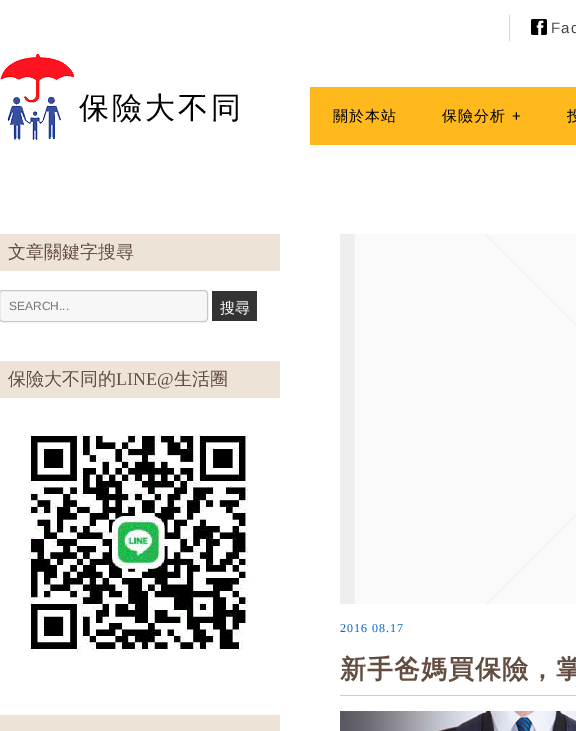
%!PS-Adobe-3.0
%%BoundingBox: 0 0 576 731
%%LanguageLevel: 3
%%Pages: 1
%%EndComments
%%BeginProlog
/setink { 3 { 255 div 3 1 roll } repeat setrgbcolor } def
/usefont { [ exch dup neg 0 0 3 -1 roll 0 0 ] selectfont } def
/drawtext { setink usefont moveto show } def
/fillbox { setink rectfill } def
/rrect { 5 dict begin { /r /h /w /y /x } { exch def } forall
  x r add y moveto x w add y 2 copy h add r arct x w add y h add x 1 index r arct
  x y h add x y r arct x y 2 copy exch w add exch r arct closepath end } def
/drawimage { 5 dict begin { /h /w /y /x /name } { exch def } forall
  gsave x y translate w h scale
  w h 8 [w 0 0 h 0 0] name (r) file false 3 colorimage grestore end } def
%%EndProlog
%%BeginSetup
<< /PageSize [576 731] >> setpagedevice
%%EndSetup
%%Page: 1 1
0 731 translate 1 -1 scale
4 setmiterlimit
0 0 576 731 255 255 255 fillbox
509 15 1 26 210 210 210 fillbox
(assets/img1.rgb) 531 19 16 16 drawimage
/LiberationSans-Regular 15 usefont
68 68 68 setink
551 33 moveto 1 0 (Fac) ashow
(assets/img2.rgb) 0 54 74 86 drawimage
/WenQuanYiZenHei-Medium 30 usefont
0 0 0 setink
79 118 moveto 3 0 (保險大不同) ashow
310 87 266 58 255 185 29 fillbox
/WenQuanYiZenHei-Medium 15 usefont
0 0 0 setink
333 121 moveto 1 0 (關於本站) ashow
442 121 moveto 1 0 (保險分析) ashow
/LiberationSans-Regular 15 usefont
512 121 moveto 1 0 (+) ashow
/WenQuanYiZenHei-Medium 15 usefont
567 121 moveto 1 0 (投) ashow
0 234 280 37 238 227 215 fillbox
(文章關鍵字搜尋) 8 258 /WenQuanYiZenHei-Medium 18 99 77 64 drawtext
247 247 247 setink
0 291 207 30 3 rrect fill
199 199 199 setink
-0.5 290.5 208 31 3.5 rrect stroke
(SEARCH...) 9 310 /LiberationSans-Regular 12 117 117 117 drawtext
212 291 45 30 51 51 51 fillbox
(搜尋) 220 313 /WenQuanYiZenHei-Medium 15 255 255 255 drawtext
0 361 280 37 238 227 215 fillbox
(保險大不同的) 8 385 /WenQuanYiZenHei-Medium 18 99 77 64 drawtext
(LINE@) 116 385 /LiberationSerif-Regular 18 99 77 64 drawtext
(生活圈) 174 385 /WenQuanYiZenHei-Medium 18 99 77 64 drawtext
(assets/img3.rgb) 28 434 221 218 drawimage
0 715 280 16 238 227 215 fillbox
(assets/img4.rgb) 340 234 236 370 drawimage
/LiberationSerif-Regular 12 usefont
0 102 204 setink
340 632 moveto 1 0 (2016 08.17) ashow
/WenQuanYiZenHei-Bold 26 usefont
99 77 64 setink
340 678 moveto 1 0 (新手爸媽買保險，掌) ashow
340 695 236 1 204 204 204 fillbox
(assets/img5.rgb) 340 711 236 20 drawimage
showpage
%%EOF
